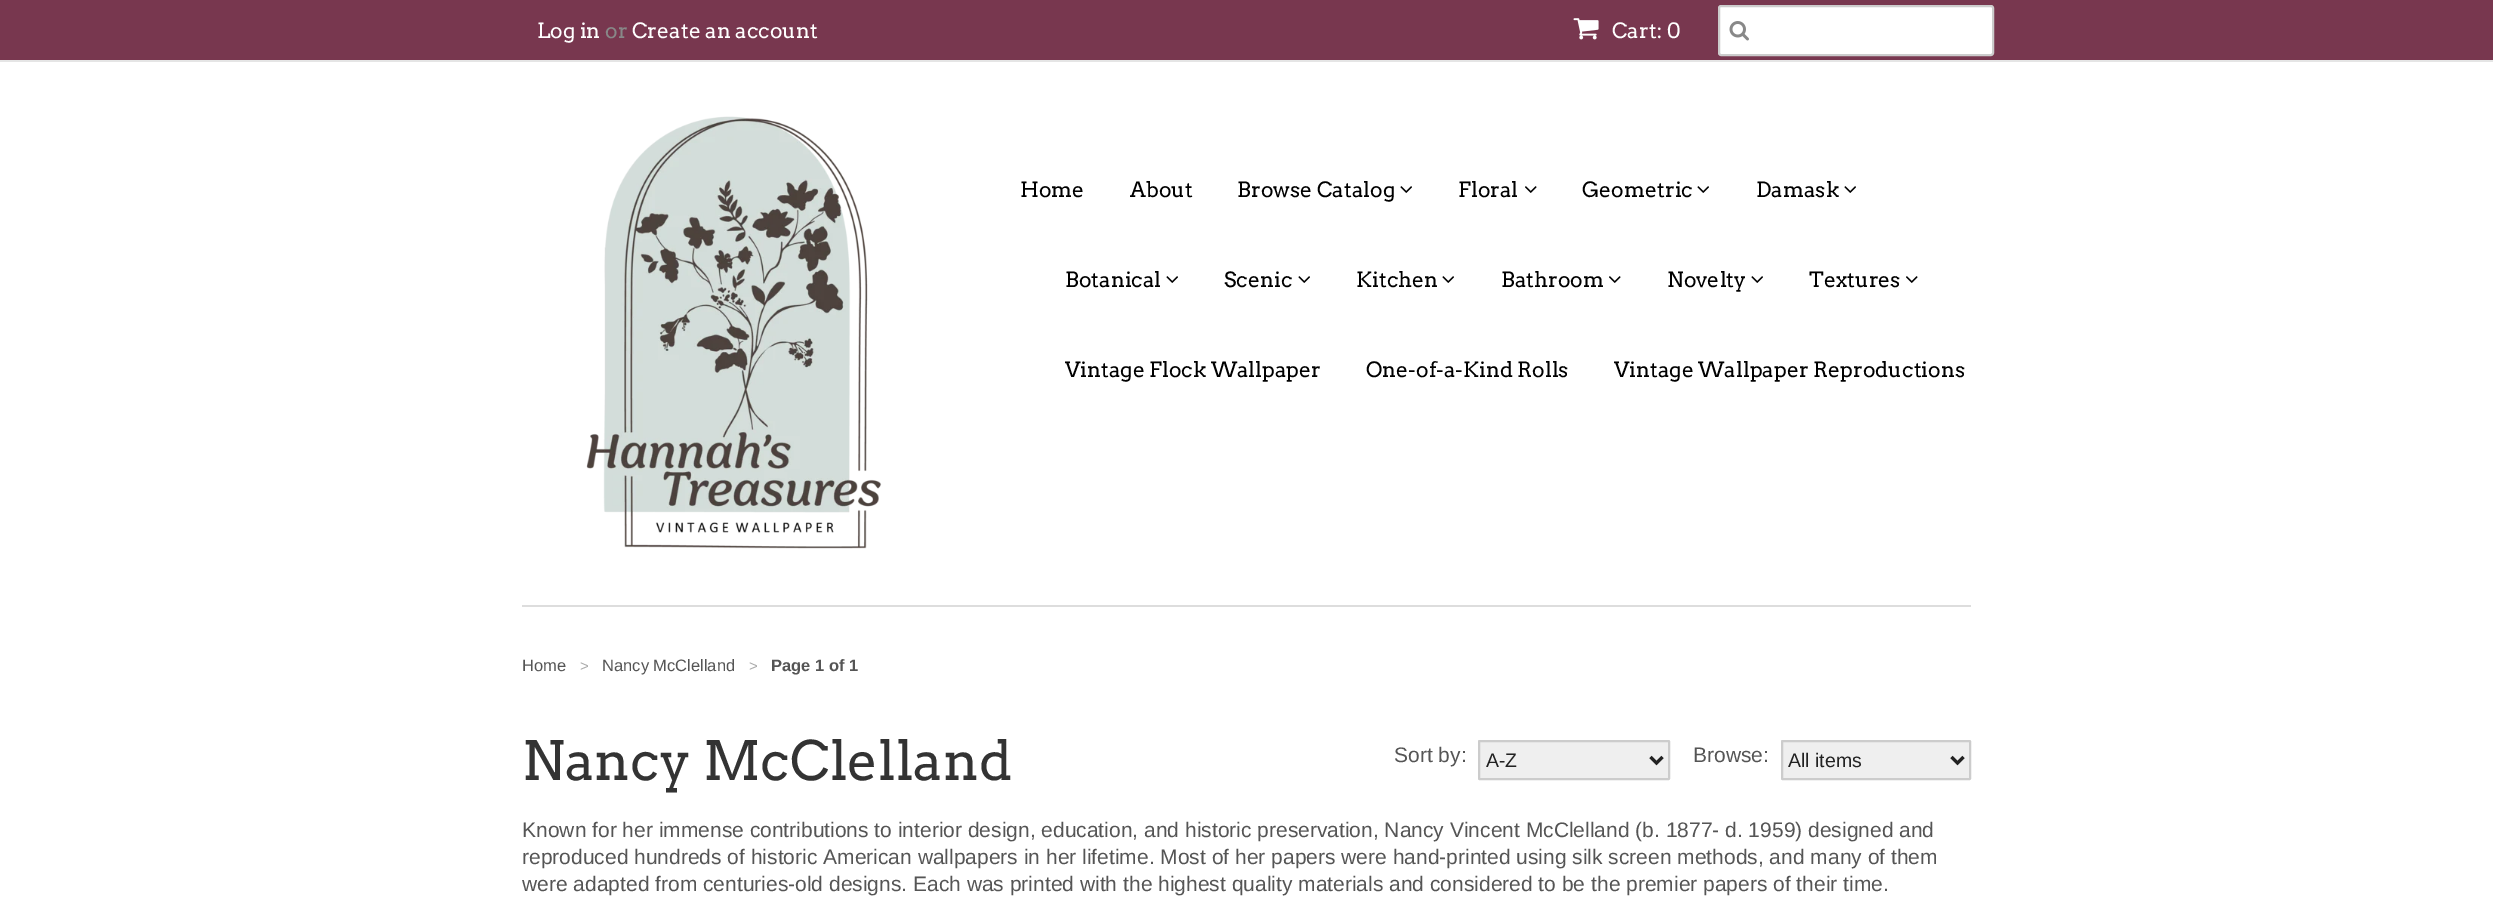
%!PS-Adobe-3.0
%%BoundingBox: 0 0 2493 907
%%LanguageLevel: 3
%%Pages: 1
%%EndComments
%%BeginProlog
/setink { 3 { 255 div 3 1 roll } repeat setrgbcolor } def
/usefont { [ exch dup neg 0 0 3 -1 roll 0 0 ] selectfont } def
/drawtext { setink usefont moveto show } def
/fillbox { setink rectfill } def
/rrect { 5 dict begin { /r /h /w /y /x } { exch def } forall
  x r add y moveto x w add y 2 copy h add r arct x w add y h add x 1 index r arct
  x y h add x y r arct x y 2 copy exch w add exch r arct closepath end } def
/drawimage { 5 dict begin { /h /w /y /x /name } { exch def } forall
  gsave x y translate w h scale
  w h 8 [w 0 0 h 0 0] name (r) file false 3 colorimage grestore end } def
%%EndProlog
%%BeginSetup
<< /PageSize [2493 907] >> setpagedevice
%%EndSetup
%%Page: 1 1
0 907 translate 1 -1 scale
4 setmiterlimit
0 0 2493 907 255 255 255 fillbox
0 0 2493 60 120 55 79 fillbox
0 60 2493 2 229 229 229 fillbox
(Log in) 537 38 /Arvo-Regular 21 255 255 255 drawtext
(or) 605 38 /Arvo-Regular 21 136 136 136 drawtext
(Create an account) 632 38 /Arvo-Regular 21 255 255 255 drawtext
(assets/img1.rgb) 1573 18 26 22 drawimage
(Cart: 0) 1612 38 /Arvo-Regular 21 255 255 255 drawtext
1719 6 274 49 2 rrect gsave fill grestore
204 204 204 setink
2 setlinewidth
stroke
(assets/img2.rgb) 1729 21 20 20 drawimage
522 605 1449 2 221 221 221 fillbox
(assets/img3.rgb) 586 116 296 433 drawimage
(Home) 1020 197 /Arvo-Regular 21 0 0 0 drawtext
(About) 1130 197 /Arvo-Regular 21 0 0 0 drawtext
(Browse Catalog) 1237 197 /Arvo-Regular 21 0 0 0 drawtext
(assets/img4.rgb) 1400 186 12 7 drawimage
(Floral) 1458 197 /Arvo-Regular 21 0 0 0 drawtext
(assets/img5.rgb) 1525 186 12 7 drawimage
(Geometric) 1582 197 /Arvo-Regular 21 0 0 0 drawtext
(assets/img4.rgb) 1697 186 12 7 drawimage
(Damask) 1756 197 /Arvo-Regular 21 0 0 0 drawtext
(assets/img4.rgb) 1844 186 12 7 drawimage
(Botanical) 1065 287 /Arvo-Regular 21 0 0 0 drawtext
(assets/img4.rgb) 1166 276 12 7 drawimage
(Scenic) 1224 287 /Arvo-Regular 21 0 0 0 drawtext
(assets/img4.rgb) 1298 276 12 7 drawimage
(Kitchen) 1356 287 /Arvo-Regular 21 0 0 0 drawtext
(assets/img4.rgb) 1442 276 12 7 drawimage
(Bathroom) 1501 287 /Arvo-Regular 21 0 0 0 drawtext
(assets/img5.rgb) 1609 276 12 7 drawimage
(Novelty) 1667 287 /Arvo-Regular 21 0 0 0 drawtext
(assets/img4.rgb) 1751 276 12 7 drawimage
(Textures) 1809 287 /Arvo-Regular 21 0 0 0 drawtext
(assets/img5.rgb) 1906 276 12 7 drawimage
(Vintage Flock Wallpaper) 1065 377 /Arvo-Regular 21 0 0 0 drawtext
(One-of-a-Kind Rolls) 1366 377 /Arvo-Regular 21 0 0 0 drawtext
(Vintage Wallpaper Reproductions) 1614 377 /Arvo-Regular 21 0 0 0 drawtext
(Home) 522 671 /LiberationSans-Regular 16.5 85 85 85 drawtext
(>) 580 671 /LiberationSans-Regular 15 170 170 170 drawtext
(Nancy McClelland) 602 671 /LiberationSans-Regular 16.5 85 85 85 drawtext
(>) 749 671 /LiberationSans-Regular 15 170 170 170 drawtext
(Page 1 of 1) 771 671 /LiberationSans-Bold 16.5 85 85 85 drawtext
(Nancy McClelland) 522 780 /Arvo-Regular 54 51 51 51 drawtext
(Sort by:) 1394 762 /LiberationSans-Regular 21 85 85 85 drawtext
239 239 239 setink
1479 741 190 38 0.5 rrect gsave fill grestore
204 204 204 setink
stroke
34 34 34 setink
3 setlinewidth
1650.5 757 moveto 1656.5 763 lineto 1662.5 757 lineto stroke
(A-Z) 1486 767 /LiberationSans-Regular 19.5 34 34 34 drawtext
(Browse:) 1693 762 /LiberationSans-Regular 21 85 85 85 drawtext
239 239 239 setink
1782 741 188 38 0.5 rrect gsave fill grestore
204 204 204 setink
2 setlinewidth
stroke
34 34 34 setink
3 setlinewidth
1951.5 757 moveto 1957.5 763 lineto 1963.5 757 lineto stroke
(All items) 1788 767 /LiberationSans-Regular 19.5 34 34 34 drawtext
(Known for her immense contributions to interior design, education, and historic preservation, Nancy Vincent McClelland \(b. 1877- d. 1959\) designed and) 522 837 /LiberationSans-Regular 21 85 85 85 drawtext
(reproduced hundreds of historic American wallpapers in her lifetime. Most of her papers were hand-printed using silk screen methods, and many of them) 522 864 /LiberationSans-Regular 21 85 85 85 drawtext
(were adapted from centuries-old designs. Each was printed with the highest quality materials and considered to be the premier papers of their time.) 522 891 /LiberationSans-Regular 21 85 85 85 drawtext
showpage
%%EOF
